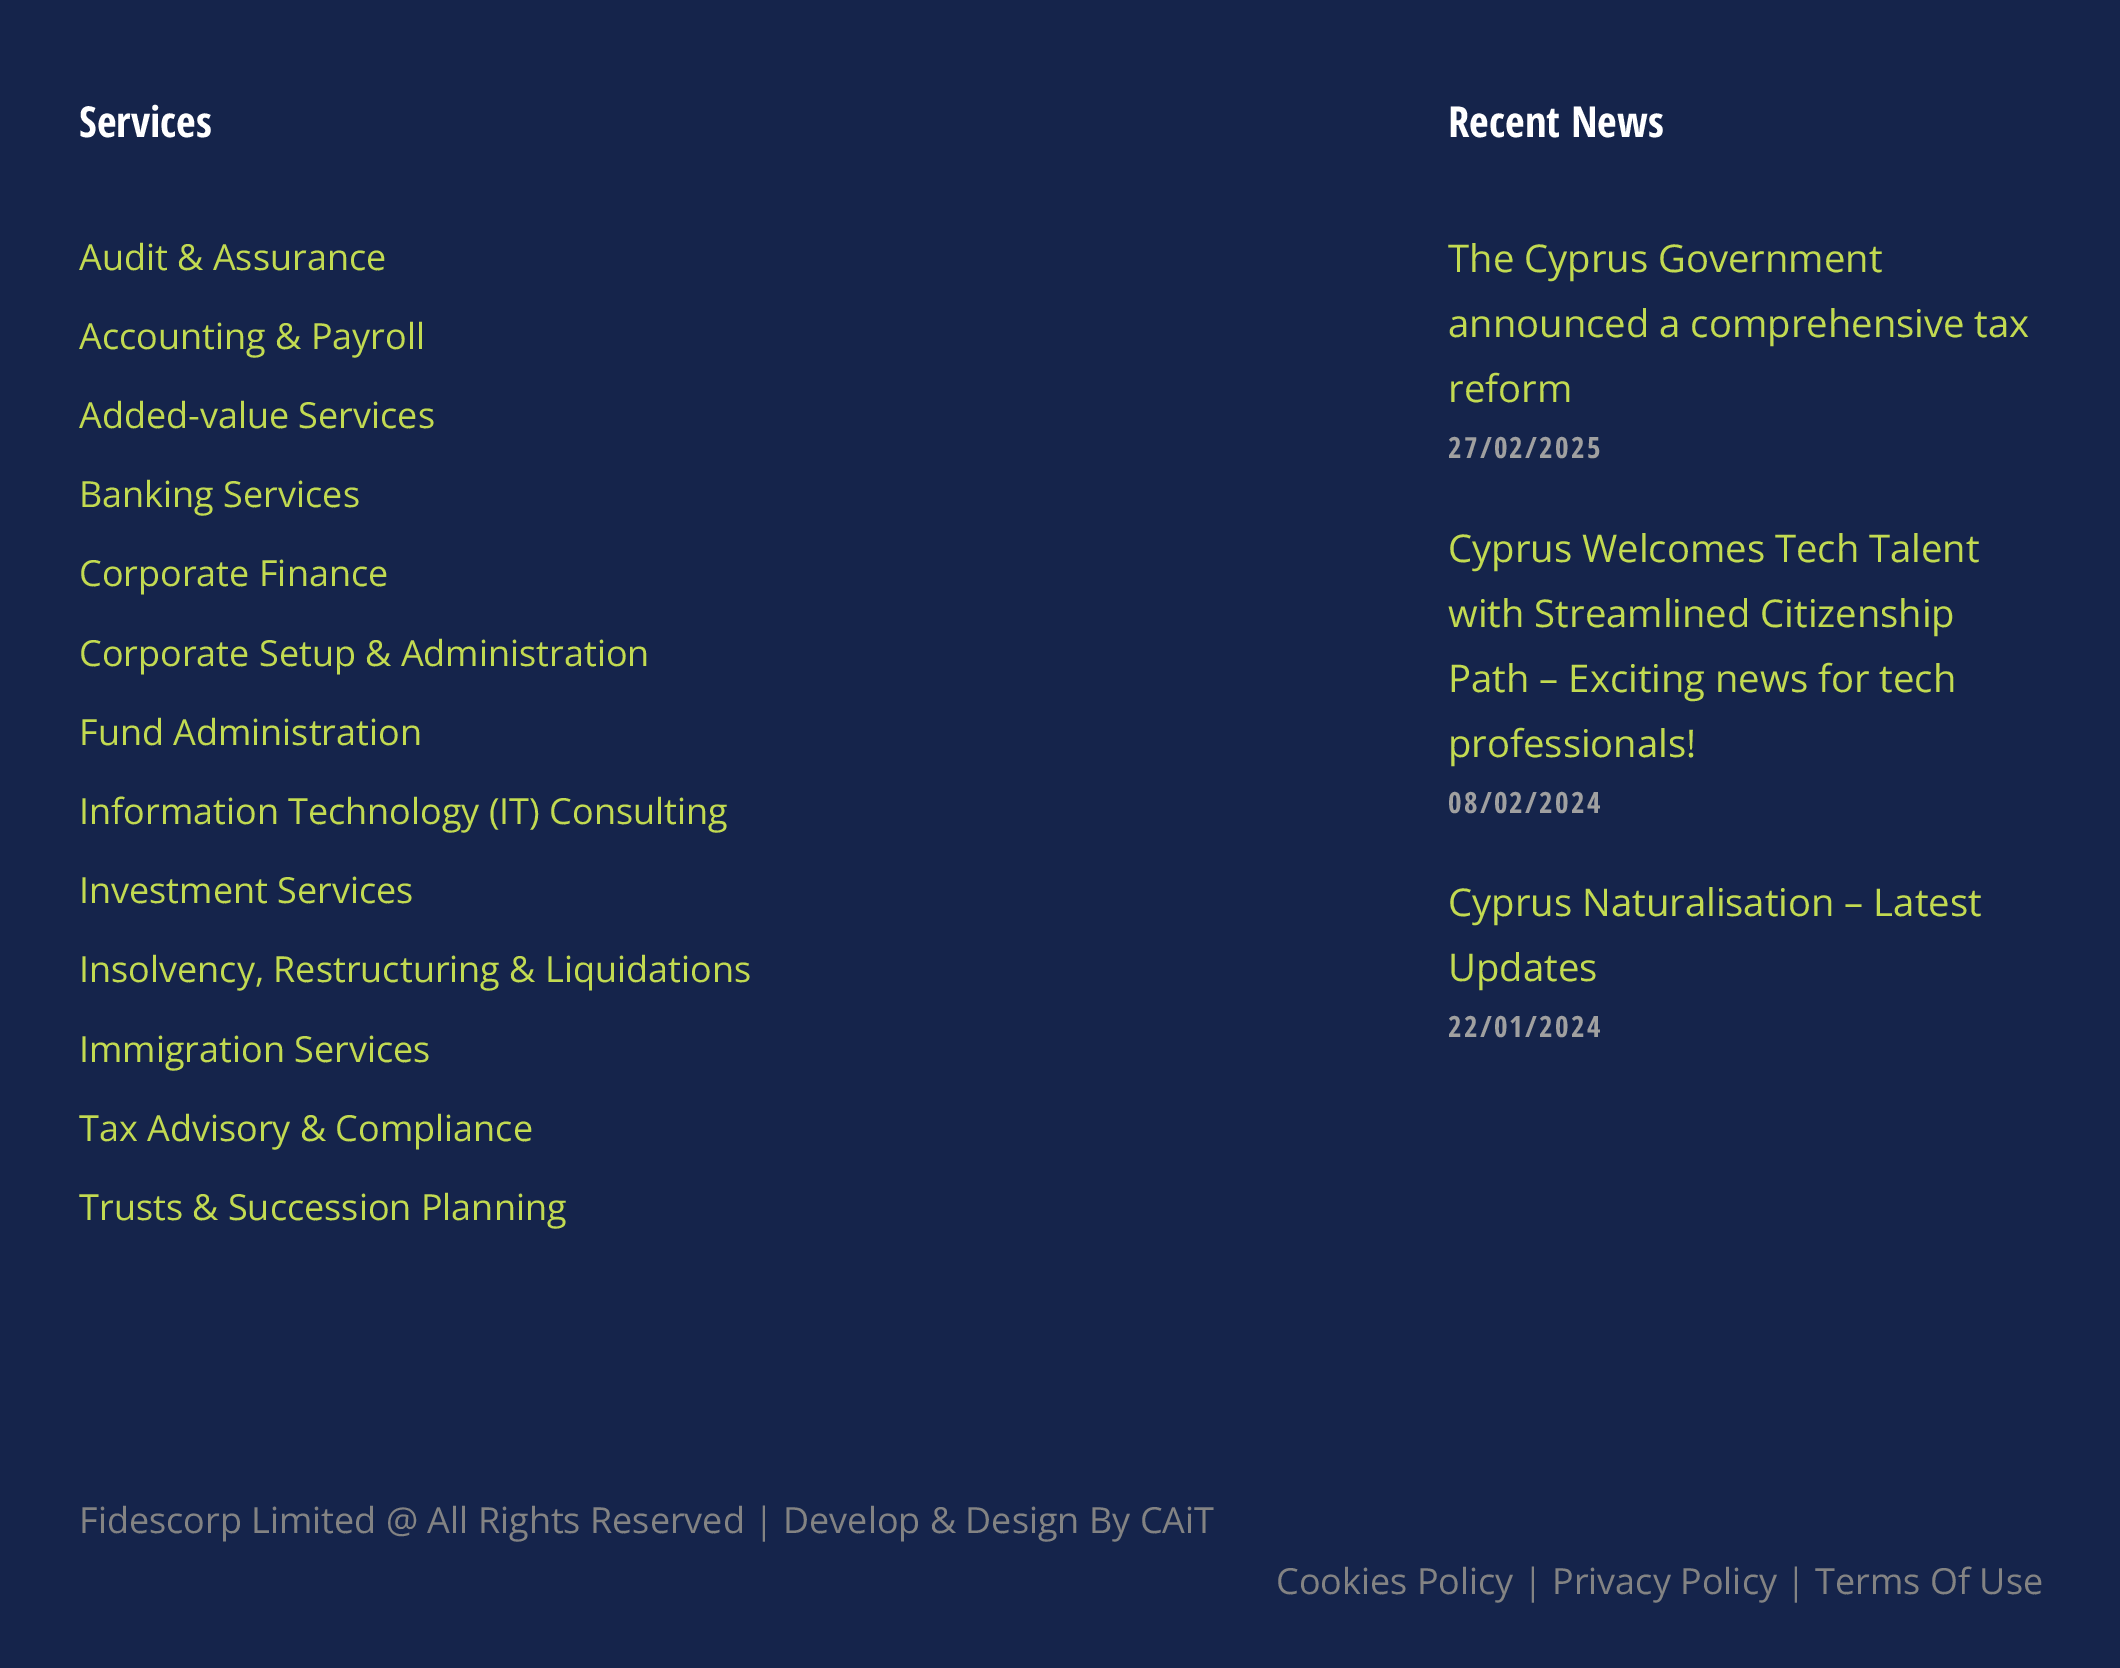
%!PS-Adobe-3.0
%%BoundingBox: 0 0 2120 1668
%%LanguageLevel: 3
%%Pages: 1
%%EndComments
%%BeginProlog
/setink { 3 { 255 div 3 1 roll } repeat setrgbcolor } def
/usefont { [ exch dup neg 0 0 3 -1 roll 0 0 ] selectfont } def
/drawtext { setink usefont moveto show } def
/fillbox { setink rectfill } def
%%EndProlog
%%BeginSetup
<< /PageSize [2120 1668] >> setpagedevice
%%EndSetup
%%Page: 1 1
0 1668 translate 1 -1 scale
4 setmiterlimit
0 0 2120 1668 21 36 75 fillbox
(Services) 79 137 /OpenSansCondensed-Bold 42.75 255 255 255 drawtext
(Audit & Assurance) 79 270 /OpenSans-Regular 36 194 218 81 drawtext
(Accounting & Payroll) 79 349 /OpenSans-Regular 36 194 218 81 drawtext
(Added-value Services) 79 428 /OpenSans-Regular 36 194 218 81 drawtext
(Banking Services) 79 507 /OpenSans-Regular 36 194 218 81 drawtext
(Corporate Finance) 79 586 /OpenSans-Regular 36 194 218 81 drawtext
(Corporate Setup & Administration) 79 666 /OpenSans-Regular 36 194 218 81 drawtext
(Fund Administration) 79 745 /OpenSans-Regular 36 194 218 81 drawtext
(Information Technology \(IT\) Consulting) 79 824 /OpenSans-Regular 36 194 218 81 drawtext
(Investment Services) 79 903 /OpenSans-Regular 36 194 218 81 drawtext
(Insolvency, Restructuring & Liquidations) 79 982 /OpenSans-Regular 36 194 218 81 drawtext
(Immigration Services) 79 1062 /OpenSans-Regular 36 194 218 81 drawtext
(Tax Advisory & Compliance) 79 1141 /OpenSans-Regular 36 194 218 81 drawtext
(Trusts & Succession Planning) 79 1220 /OpenSans-Regular 36 194 218 81 drawtext
(Recent News) 1448 137 /OpenSansCondensed-Bold 42.75 255 255 255 drawtext
(The Cyprus Government) 1448 272 /OpenSans-Regular 38.25 194 218 81 drawtext
(announced a comprehensive tax) 1448 337 /OpenSans-Regular 38.25 194 218 81 drawtext
(reform) 1448 402 /OpenSans-Regular 38.25 194 218 81 drawtext
/OpenSansCondensed-Bold 29.25 usefont
160 160 160 setink
1448 458 moveto 2.25 0 (27/02/2025) ashow
(Cyprus Welcomes Tech Talent) 1448 562 /OpenSans-Regular 38.25 194 218 81 drawtext
(with Streamlined Citizenship) 1448 627 /OpenSans-Regular 38.25 194 218 81 drawtext
(Path – Exciting news for tech) 1448 692 /OpenSans-Regular 38.25 194 218 81 drawtext
(professionals!) 1448 757 /OpenSans-Regular 38.25 194 218 81 drawtext
/OpenSansCondensed-Bold 29.25 usefont
160 160 160 setink
1448 813 moveto 2.25 0 (08/02/2024) ashow
(Cyprus Naturalisation – Latest) 1448 916 /OpenSans-Regular 38.25 194 218 81 drawtext
(Updates) 1448 981 /OpenSans-Regular 38.25 194 218 81 drawtext
/OpenSansCondensed-Bold 29.25 usefont
160 160 160 setink
1448 1037 moveto 2.25 0 (22/01/2024) ashow
(Fidescorp Limited @ All Rights Reserved | Develop & Design By CAiT) 79 1533 /OpenSans-Regular 36 131 131 131 drawtext
(Cookies Policy | Privacy Policy | Terms Of Use) 1276 1594 /OpenSans-Regular 36 131 131 131 drawtext
showpage
%%EOF
